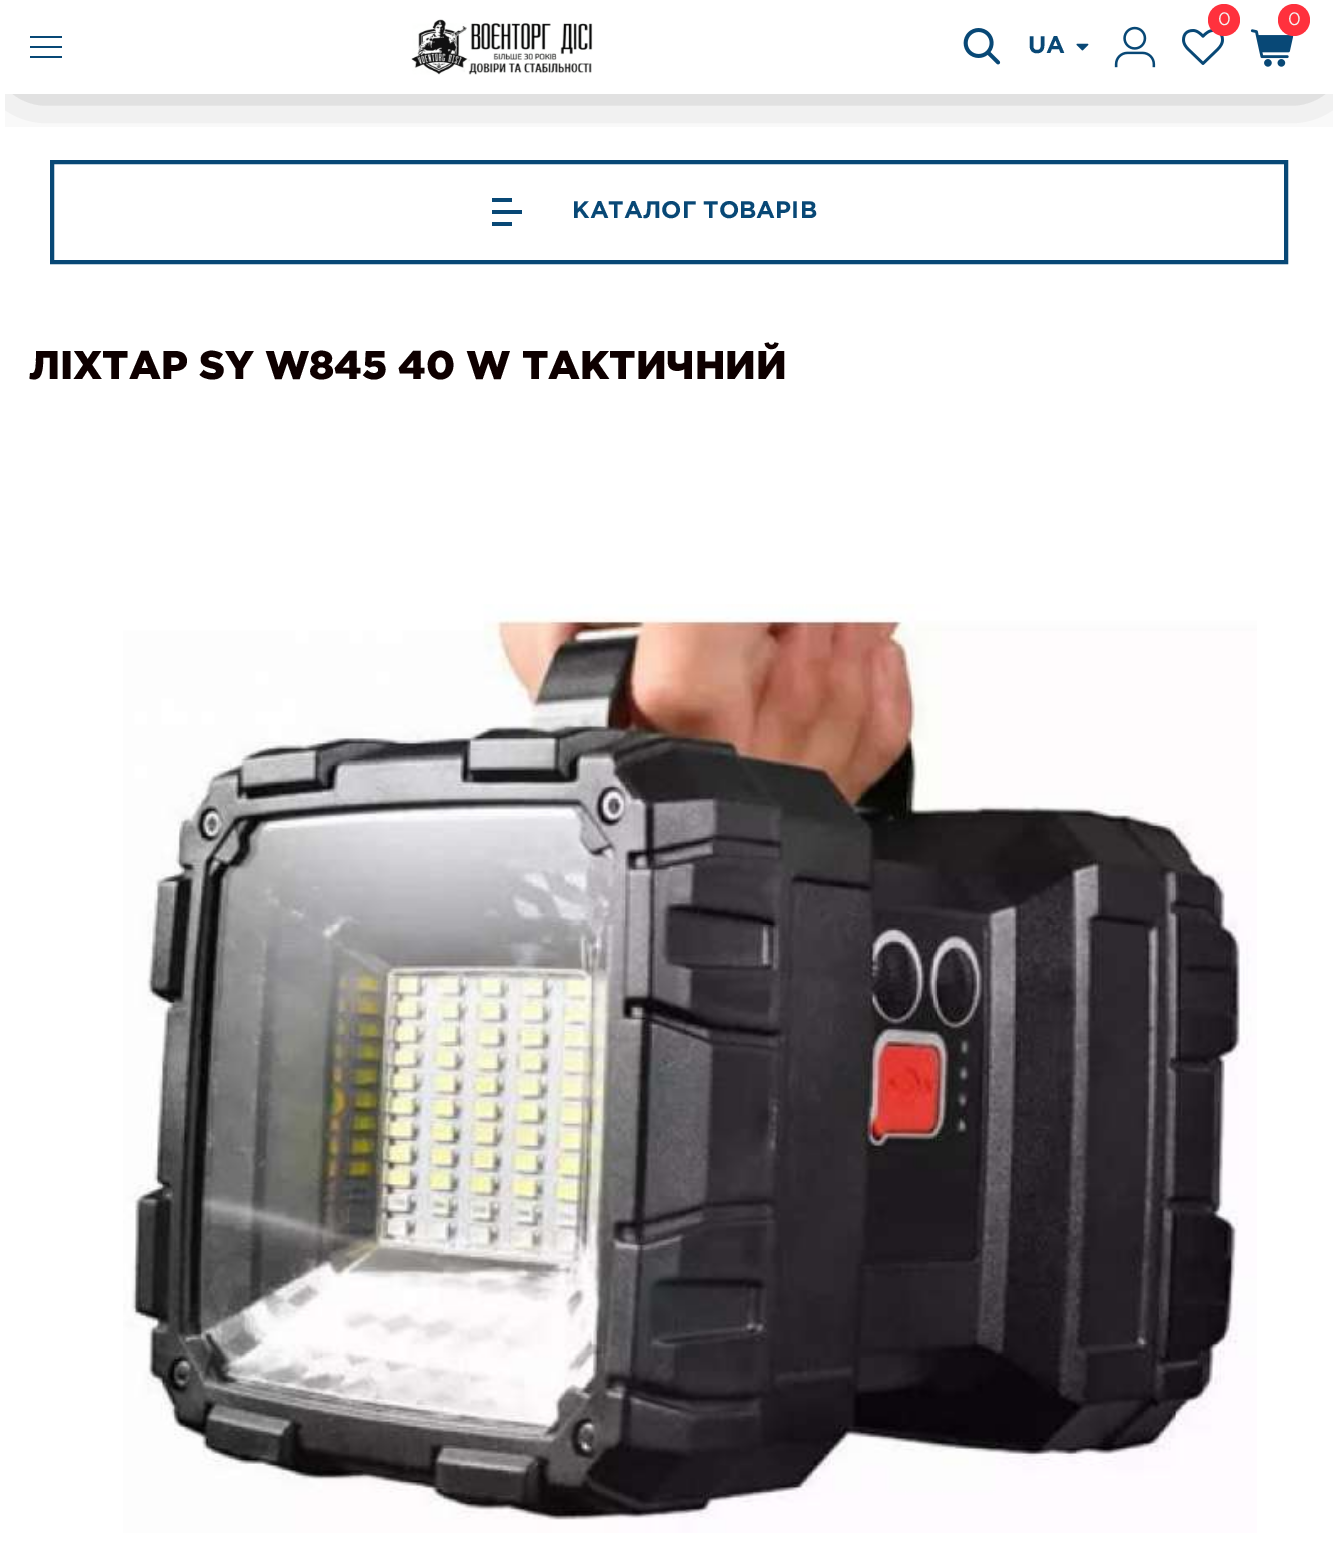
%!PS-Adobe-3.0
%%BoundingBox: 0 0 1337 1566
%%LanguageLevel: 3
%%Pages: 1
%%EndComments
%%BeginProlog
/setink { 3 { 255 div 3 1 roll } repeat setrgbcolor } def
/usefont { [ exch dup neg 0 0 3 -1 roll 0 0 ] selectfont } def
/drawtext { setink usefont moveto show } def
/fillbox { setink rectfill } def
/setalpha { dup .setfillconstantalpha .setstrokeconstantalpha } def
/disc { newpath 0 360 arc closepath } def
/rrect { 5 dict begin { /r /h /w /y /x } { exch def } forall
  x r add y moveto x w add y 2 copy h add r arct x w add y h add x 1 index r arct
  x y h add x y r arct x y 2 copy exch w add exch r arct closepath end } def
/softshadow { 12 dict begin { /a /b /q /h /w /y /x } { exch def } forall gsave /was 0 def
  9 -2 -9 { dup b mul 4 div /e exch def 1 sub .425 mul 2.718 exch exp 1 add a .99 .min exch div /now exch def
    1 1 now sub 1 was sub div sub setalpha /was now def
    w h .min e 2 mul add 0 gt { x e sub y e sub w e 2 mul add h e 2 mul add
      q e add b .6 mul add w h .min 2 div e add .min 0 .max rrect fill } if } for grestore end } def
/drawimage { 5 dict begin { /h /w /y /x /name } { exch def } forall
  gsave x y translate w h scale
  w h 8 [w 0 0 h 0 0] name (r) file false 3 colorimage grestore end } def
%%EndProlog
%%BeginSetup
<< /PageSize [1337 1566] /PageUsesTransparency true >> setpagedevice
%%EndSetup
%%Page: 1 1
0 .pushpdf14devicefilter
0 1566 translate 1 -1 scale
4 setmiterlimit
0 0 1337 1566 255 255 255 fillbox
8 72 118 setink
4 setlinewidth
52 162 1234 100 rectstroke
gsave
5 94 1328 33 rectclip
0 0 0 setink
34 36 1270 26 0 35 0.75 softshadow
grestore
30 36 32 2 8 72 118 fillbox
30 46 32 2 8 72 118 fillbox
30 56 32 2 8 72 118 fillbox
(assets/img1.rgb) 411 19 182 56 drawimage
(assets/img2.rgb) 1182 29 42 36 drawimage
255 49 61 setink
1224 20 16 disc fill
(0) 1218 25 /Gotham-Regular 18 244 244 244 drawtext
(assets/img3.rgb) 1250 29 44 38 drawimage
255 49 61 setink
1294 20 16 disc fill
(0) 1288 25 /Gotham-Regular 18 244 244 244 drawtext
(assets/img4.rgb) 963 28 38 37 drawimage
(UA) 1028 53 /Gotham-Bold 24 8 72 118 drawtext
(assets/img5.rgb) 1076 43 13 8 drawimage
(assets/img6.rgb) 1114 26 42 42 drawimage
492 198 20 4 8 72 118 fillbox
492 210 30 4 8 72 118 fillbox
492 222 20 4 8 72 118 fillbox
(КАТАЛОГ ТОВАРІВ) 572 218 /Gotham-Bold 24 8 72 118 drawtext
(ЛІХТАР SY W845 40 W ТАКТИЧНИЙ) 30 379 /Gotham-Black 40 14 0 0 drawtext
(assets/img7.rgb) 123 604 1134 929 drawimage
.poppdf14devicefilter showpage
%%EOF
